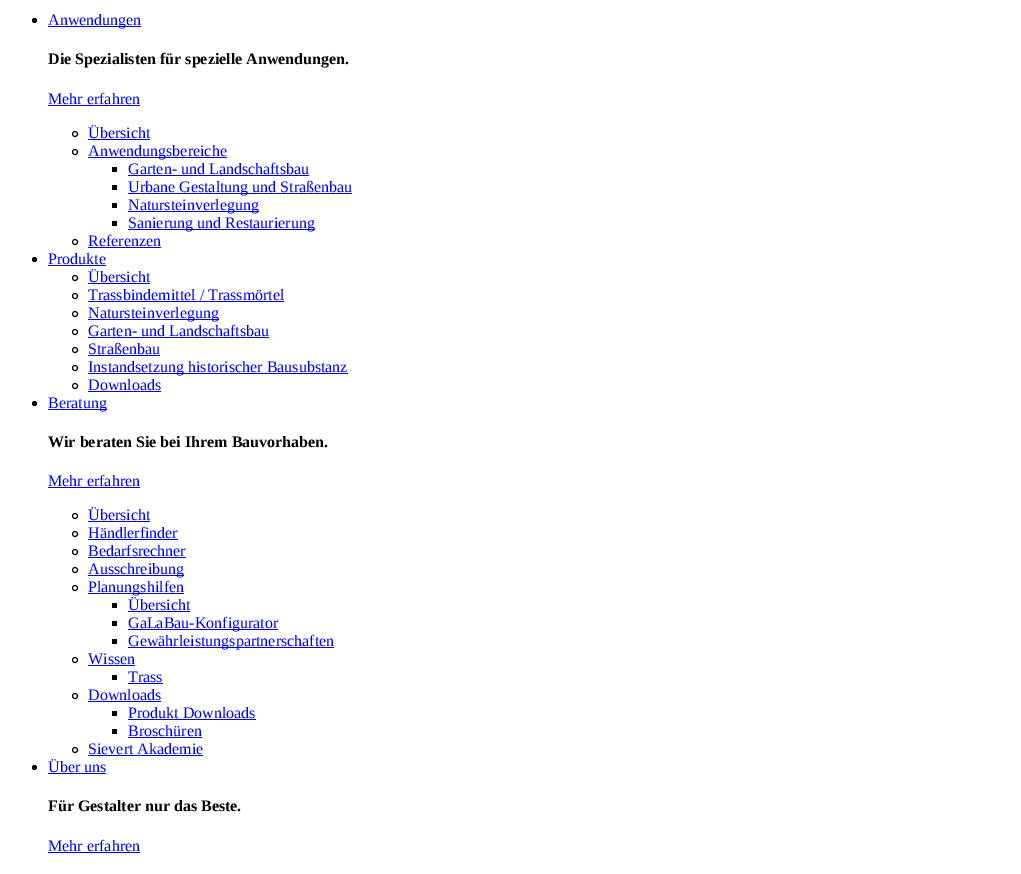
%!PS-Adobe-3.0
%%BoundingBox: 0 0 1021 874
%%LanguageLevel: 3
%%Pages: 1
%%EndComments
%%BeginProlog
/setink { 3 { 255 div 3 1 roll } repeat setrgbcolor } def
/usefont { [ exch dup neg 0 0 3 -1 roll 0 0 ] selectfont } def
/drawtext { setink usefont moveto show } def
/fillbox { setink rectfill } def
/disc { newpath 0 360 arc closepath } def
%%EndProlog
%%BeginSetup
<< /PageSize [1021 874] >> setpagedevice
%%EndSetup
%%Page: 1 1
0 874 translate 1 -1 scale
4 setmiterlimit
0 0 1021 874 255 255 255 fillbox
0 0 0 setink
34.5 20.5 2.5 disc fill
48 26 93 1 0 0 238 fillbox
(Anwendungen) 48 25 /LiberationSerif-Regular 16 0 0 238 drawtext
(Die Spezialisten für spezielle Anwendungen.) 48 64 /LiberationSerif-Bold 16 0 0 0 drawtext
(Mehr erfahren) 48 104 /LiberationSerif-Regular 16 0 0 238 drawtext
48 105 92 1 0 0 238 fillbox
0 0 0 setink
75 134 2.5 disc stroke
(Übersicht) 88 138 /LiberationSerif-Regular 16 0 0 238 drawtext
88 139 62 1 0 0 238 fillbox
0 0 0 setink
75 152 2.5 disc stroke
88 157 139 1 0 0 238 fillbox
(Anwendungsbereiche) 88 156 /LiberationSerif-Regular 16 0 0 238 drawtext
112 167 5 5 0 0 0 fillbox
(Garten- und Landschaftsbau) 128 174 /LiberationSerif-Regular 16 0 0 238 drawtext
128 175 181 1 0 0 238 fillbox
112 185 5 5 0 0 0 fillbox
128 193 224 1 0 0 238 fillbox
(Urbane Gestaltung und Straßenbau) 128 192 /LiberationSerif-Regular 16 0 0 238 drawtext
112 203 5 5 0 0 0 fillbox
128 211 131 1 0 0 238 fillbox
(Natursteinverlegung) 128 210 /LiberationSerif-Regular 16 0 0 238 drawtext
112 221 5 5 0 0 0 fillbox
128 229 187 1 0 0 238 fillbox
(Sanierung und Restaurierung) 128 228 /LiberationSerif-Regular 16 0 0 238 drawtext
0 0 0 setink
75 242 2.5 disc stroke
(Referenzen) 88 246 /LiberationSerif-Regular 16 0 0 238 drawtext
88 247 73 1 0 0 238 fillbox
0 0 0 setink
34.5 259.5 2.5 disc fill
(Produkte) 48 264 /LiberationSerif-Regular 16 0 0 238 drawtext
48 265 58 1 0 0 238 fillbox
0 0 0 setink
75 278 2.5 disc stroke
(Übersicht) 88 282 /LiberationSerif-Regular 16 0 0 238 drawtext
88 283 62 1 0 0 238 fillbox
0 0 0 setink
75 296 2.5 disc stroke
(Trassbindemittel / Trassmörtel) 88 300 /LiberationSerif-Regular 16 0 0 238 drawtext
88 301 196 1 0 0 238 fillbox
0 0 0 setink
75 314 2.5 disc stroke
88 319 131 1 0 0 238 fillbox
(Natursteinverlegung) 88 318 /LiberationSerif-Regular 16 0 0 238 drawtext
0 0 0 setink
75 332 2.5 disc stroke
(Garten- und Landschaftsbau) 88 336 /LiberationSerif-Regular 16 0 0 238 drawtext
88 337 181 1 0 0 238 fillbox
0 0 0 setink
75 350 2.5 disc stroke
(Straßenbau) 88 354 /LiberationSerif-Regular 16 0 0 238 drawtext
88 355 72 1 0 0 238 fillbox
0 0 0 setink
75 368 2.5 disc stroke
88 373 260 1 0 0 238 fillbox
(Instandsetzung historischer Bausubstanz) 88 372 /LiberationSerif-Regular 16 0 0 238 drawtext
0 0 0 setink
75 386 2.5 disc stroke
(Downloads) 88 390 /LiberationSerif-Regular 16 0 0 238 drawtext
88 391 73 1 0 0 238 fillbox
0 0 0 setink
34.5 403.5 2.5 disc fill
48 409 59 1 0 0 238 fillbox
(Beratung) 48 408 /LiberationSerif-Regular 16 0 0 238 drawtext
(Wir beraten Sie bei Ihrem Bauvorhaben.) 48 447 /LiberationSerif-Bold 16 0 0 0 drawtext
(Mehr erfahren) 48 486 /LiberationSerif-Regular 16 0 0 238 drawtext
48 487 92 1 0 0 238 fillbox
0 0 0 setink
75 516 2.5 disc stroke
(Übersicht) 88 520 /LiberationSerif-Regular 16 0 0 238 drawtext
88 521 62 1 0 0 238 fillbox
0 0 0 setink
75 534 2.5 disc stroke
(Händlerfinder) 88 538 /LiberationSerif-Regular 16 0 0 238 drawtext
88 539 90 1 0 0 238 fillbox
0 0 0 setink
75 552 2.5 disc stroke
(Bedarfsrechner) 88 556 /LiberationSerif-Regular 16 0 0 238 drawtext
88 557 98 1 0 0 238 fillbox
0 0 0 setink
75 570 2.5 disc stroke
88 575 96 1 0 0 238 fillbox
(Ausschreibung) 88 574 /LiberationSerif-Regular 16 0 0 238 drawtext
0 0 0 setink
75 588 2.5 disc stroke
88 593 96 1 0 0 238 fillbox
(Planungshilfen) 88 592 /LiberationSerif-Regular 16 0 0 238 drawtext
112 603 5 5 0 0 0 fillbox
(Übersicht) 128 610 /LiberationSerif-Regular 16 0 0 238 drawtext
128 611 62 1 0 0 238 fillbox
112 621 5 5 0 0 0 fillbox
128 629 150 1 0 0 238 fillbox
(GaLaBau-Konfigurator) 128 628 /LiberationSerif-Regular 16 0 0 238 drawtext
112 639 5 5 0 0 0 fillbox
128 647 206 1 0 0 238 fillbox
(Gewährleistungspartnerschaften) 128 646 /LiberationSerif-Regular 16 0 0 238 drawtext
0 0 0 setink
75 660 2.5 disc stroke
(Wissen) 88 664 /LiberationSerif-Regular 16 0 0 238 drawtext
88 665 47 1 0 0 238 fillbox
112 675 5 5 0 0 0 fillbox
(Trass) 128 682 /LiberationSerif-Regular 16 0 0 238 drawtext
128 683 35 1 0 0 238 fillbox
0 0 0 setink
75 696 2.5 disc stroke
(Downloads) 88 700 /LiberationSerif-Regular 16 0 0 238 drawtext
88 701 73 1 0 0 238 fillbox
112 711 5 5 0 0 0 fillbox
(Produkt Downloads) 128 718 /LiberationSerif-Regular 16 0 0 238 drawtext
128 719 128 1 0 0 238 fillbox
112 729 5 5 0 0 0 fillbox
(Broschüren) 128 736 /LiberationSerif-Regular 16 0 0 238 drawtext
128 737 74 1 0 0 238 fillbox
0 0 0 setink
75 750 2.5 disc stroke
(Sievert Akademie) 88 754 /LiberationSerif-Regular 16 0 0 238 drawtext
88 755 115 1 0 0 238 fillbox
0 0 0 setink
34.5 767.5 2.5 disc fill
(Über uns) 48 772 /LiberationSerif-Regular 16 0 0 238 drawtext
48 773 58 1 0 0 238 fillbox
(Für Gestalter nur das Beste.) 48 811 /LiberationSerif-Bold 16 0 0 0 drawtext
(Mehr erfahren) 48 851 /LiberationSerif-Regular 16 0 0 238 drawtext
48 852 92 1 0 0 238 fillbox
showpage
%%EOF
